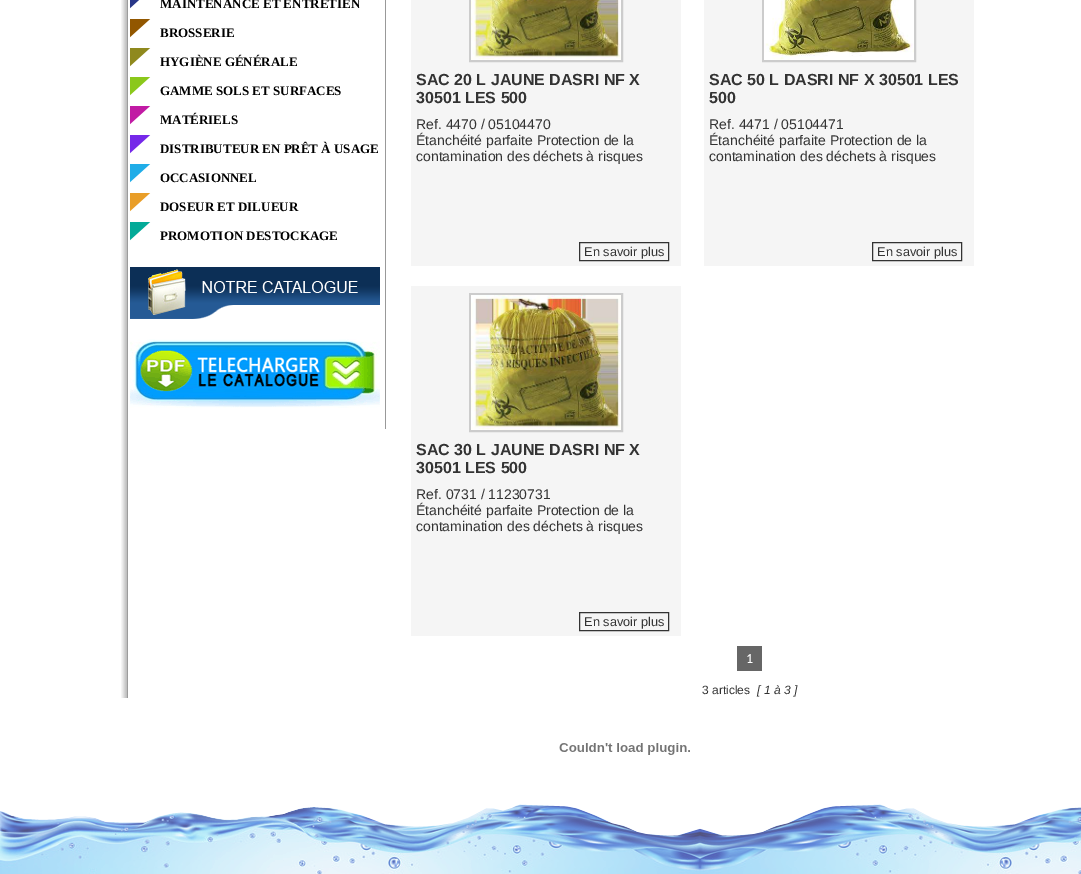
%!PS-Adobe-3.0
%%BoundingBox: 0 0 1081 874
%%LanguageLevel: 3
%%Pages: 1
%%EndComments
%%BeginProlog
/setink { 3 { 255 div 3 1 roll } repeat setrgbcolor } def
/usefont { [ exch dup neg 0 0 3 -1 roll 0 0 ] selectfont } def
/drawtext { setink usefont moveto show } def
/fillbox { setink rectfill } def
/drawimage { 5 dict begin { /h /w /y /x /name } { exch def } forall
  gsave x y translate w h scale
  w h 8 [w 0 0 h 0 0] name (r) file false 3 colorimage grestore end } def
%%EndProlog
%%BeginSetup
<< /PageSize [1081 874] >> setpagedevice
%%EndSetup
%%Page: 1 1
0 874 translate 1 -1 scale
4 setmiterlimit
0 0 1081 874 255 255 255 fillbox
(assets/img1.rgb) 121 0 7 698 drawimage
385 0 1 429 153 153 153 fillbox
(assets/img2.rgb) 130 0 9 9 drawimage
(MAINTENANCE ET ENTRETIEN) 160 8 /LiberationSerif-Bold 13 0 0 0 drawtext
(assets/img3.rgb) 130 19 21 19 drawimage
(BROSSERIE) 160 37 /LiberationSerif-Bold 13 0 0 0 drawtext
(assets/img4.rgb) 130 48 21 19 drawimage
(HYGIÈNE GÉNÉRALE) 160 66 /LiberationSerif-Bold 13 0 0 0 drawtext
(assets/img5.rgb) 130 77 21 19 drawimage
(GAMME SOLS ET SURFACES) 160 95 /LiberationSerif-Bold 13 0 0 0 drawtext
(assets/img6.rgb) 130 106 21 19 drawimage
(MATÉRIELS) 160 124 /LiberationSerif-Bold 13 0 0 0 drawtext
(assets/img7.rgb) 130 135 21 19 drawimage
(DISTRIBUTEUR EN PRÊT À USAGE) 160 153 /LiberationSerif-Bold 13 0 0 0 drawtext
(assets/img8.rgb) 130 164 21 19 drawimage
(OCCASIONNEL) 160 182 /LiberationSerif-Bold 13 0 0 0 drawtext
(assets/img9.rgb) 130 193 21 19 drawimage
(DOSEUR ET DILUEUR) 160 211 /LiberationSerif-Bold 13 0 0 0 drawtext
(assets/img10.rgb) 130 222 21 19 drawimage
(PROMOTION DESTOCKAGE) 160 240 /LiberationSerif-Bold 13 0 0 0 drawtext
(assets/img11.rgb) 130 267 250 52 drawimage
(assets/img12.rgb) 130 339 250 69 drawimage
411 0 270 266 245 245 245 fillbox
204 204 204 setink
2 setlinewidth
470 -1 152 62 rectstroke
(assets/img13.rgb) 471 0 150 60 drawimage
(SAC 20 L JAUNE DASRI NF X) 416 85 /LiberationSans-Bold 16 51 51 51 drawtext
(30501 LES 500) 416 103 /LiberationSans-Bold 16 51 51 51 drawtext
(Ref. 4470 / 05104470) 416 129 /LiberationSans-Regular 14 51 51 51 drawtext
(Étanchéité parfaite Protection de la) 416 145 /LiberationSans-Regular 14 51 51 51 drawtext
(contamination des déchets à risques) 416 161 /LiberationSans-Regular 14 51 51 51 drawtext
1 setlinewidth
579.5 242.5 89 18 rectstroke
(En savoir plus) 584 256 /LiberationSans-Regular 12.75 51 51 51 drawtext
704 0 270 266 245 245 245 fillbox
204 204 204 setink
2 setlinewidth
763 -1 152 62 rectstroke
(assets/img14.rgb) 764 0 150 60 drawimage
(SAC 50 L DASRI NF X 30501 LES) 709 85 /LiberationSans-Bold 16 51 51 51 drawtext
(500) 709 103 /LiberationSans-Bold 16 51 51 51 drawtext
(Ref. 4471 / 05104471) 709 129 /LiberationSans-Regular 14 51 51 51 drawtext
(Étanchéité parfaite Protection de la) 709 145 /LiberationSans-Regular 14 51 51 51 drawtext
(contamination des déchets à risques) 709 161 /LiberationSans-Regular 14 51 51 51 drawtext
1 setlinewidth
872.5 242.5 89 18 rectstroke
(En savoir plus) 877 256 /LiberationSans-Regular 12.75 51 51 51 drawtext
411 286 270 350 245 245 245 fillbox
204 204 204 setink
2 setlinewidth
470 294 152 137 rectstroke
(assets/img15.rgb) 471 295 150 135 drawimage
(SAC 30 L JAUNE DASRI NF X) 416 455 /LiberationSans-Bold 16 51 51 51 drawtext
(30501 LES 500) 416 473 /LiberationSans-Bold 16 51 51 51 drawtext
(Ref. 0731 / 11230731) 416 499 /LiberationSans-Regular 14 51 51 51 drawtext
(Étanchéité parfaite Protection de la) 416 515 /LiberationSans-Regular 14 51 51 51 drawtext
(contamination des déchets à risques) 416 531 /LiberationSans-Regular 14 51 51 51 drawtext
1 setlinewidth
579.5 612.5 89 18 rectstroke
(En savoir plus) 584 626 /LiberationSans-Regular 12.75 51 51 51 drawtext
737 646 25 25 102 102 102 fillbox
(1) 746 663 /Carlito-Regular 14 255 255 255 drawtext
(3 articles) 702 694 /LiberationSans-Regular 12 51 51 51 drawtext
([ 1 à 3 ]) 757 694 /LiberationSans-Italic 12 51 51 51 drawtext
(assets/img16.rgb) 559 743 131 12 drawimage
(assets/img17.rgb) 0 804 1081 70 drawimage
showpage
%%EOF
